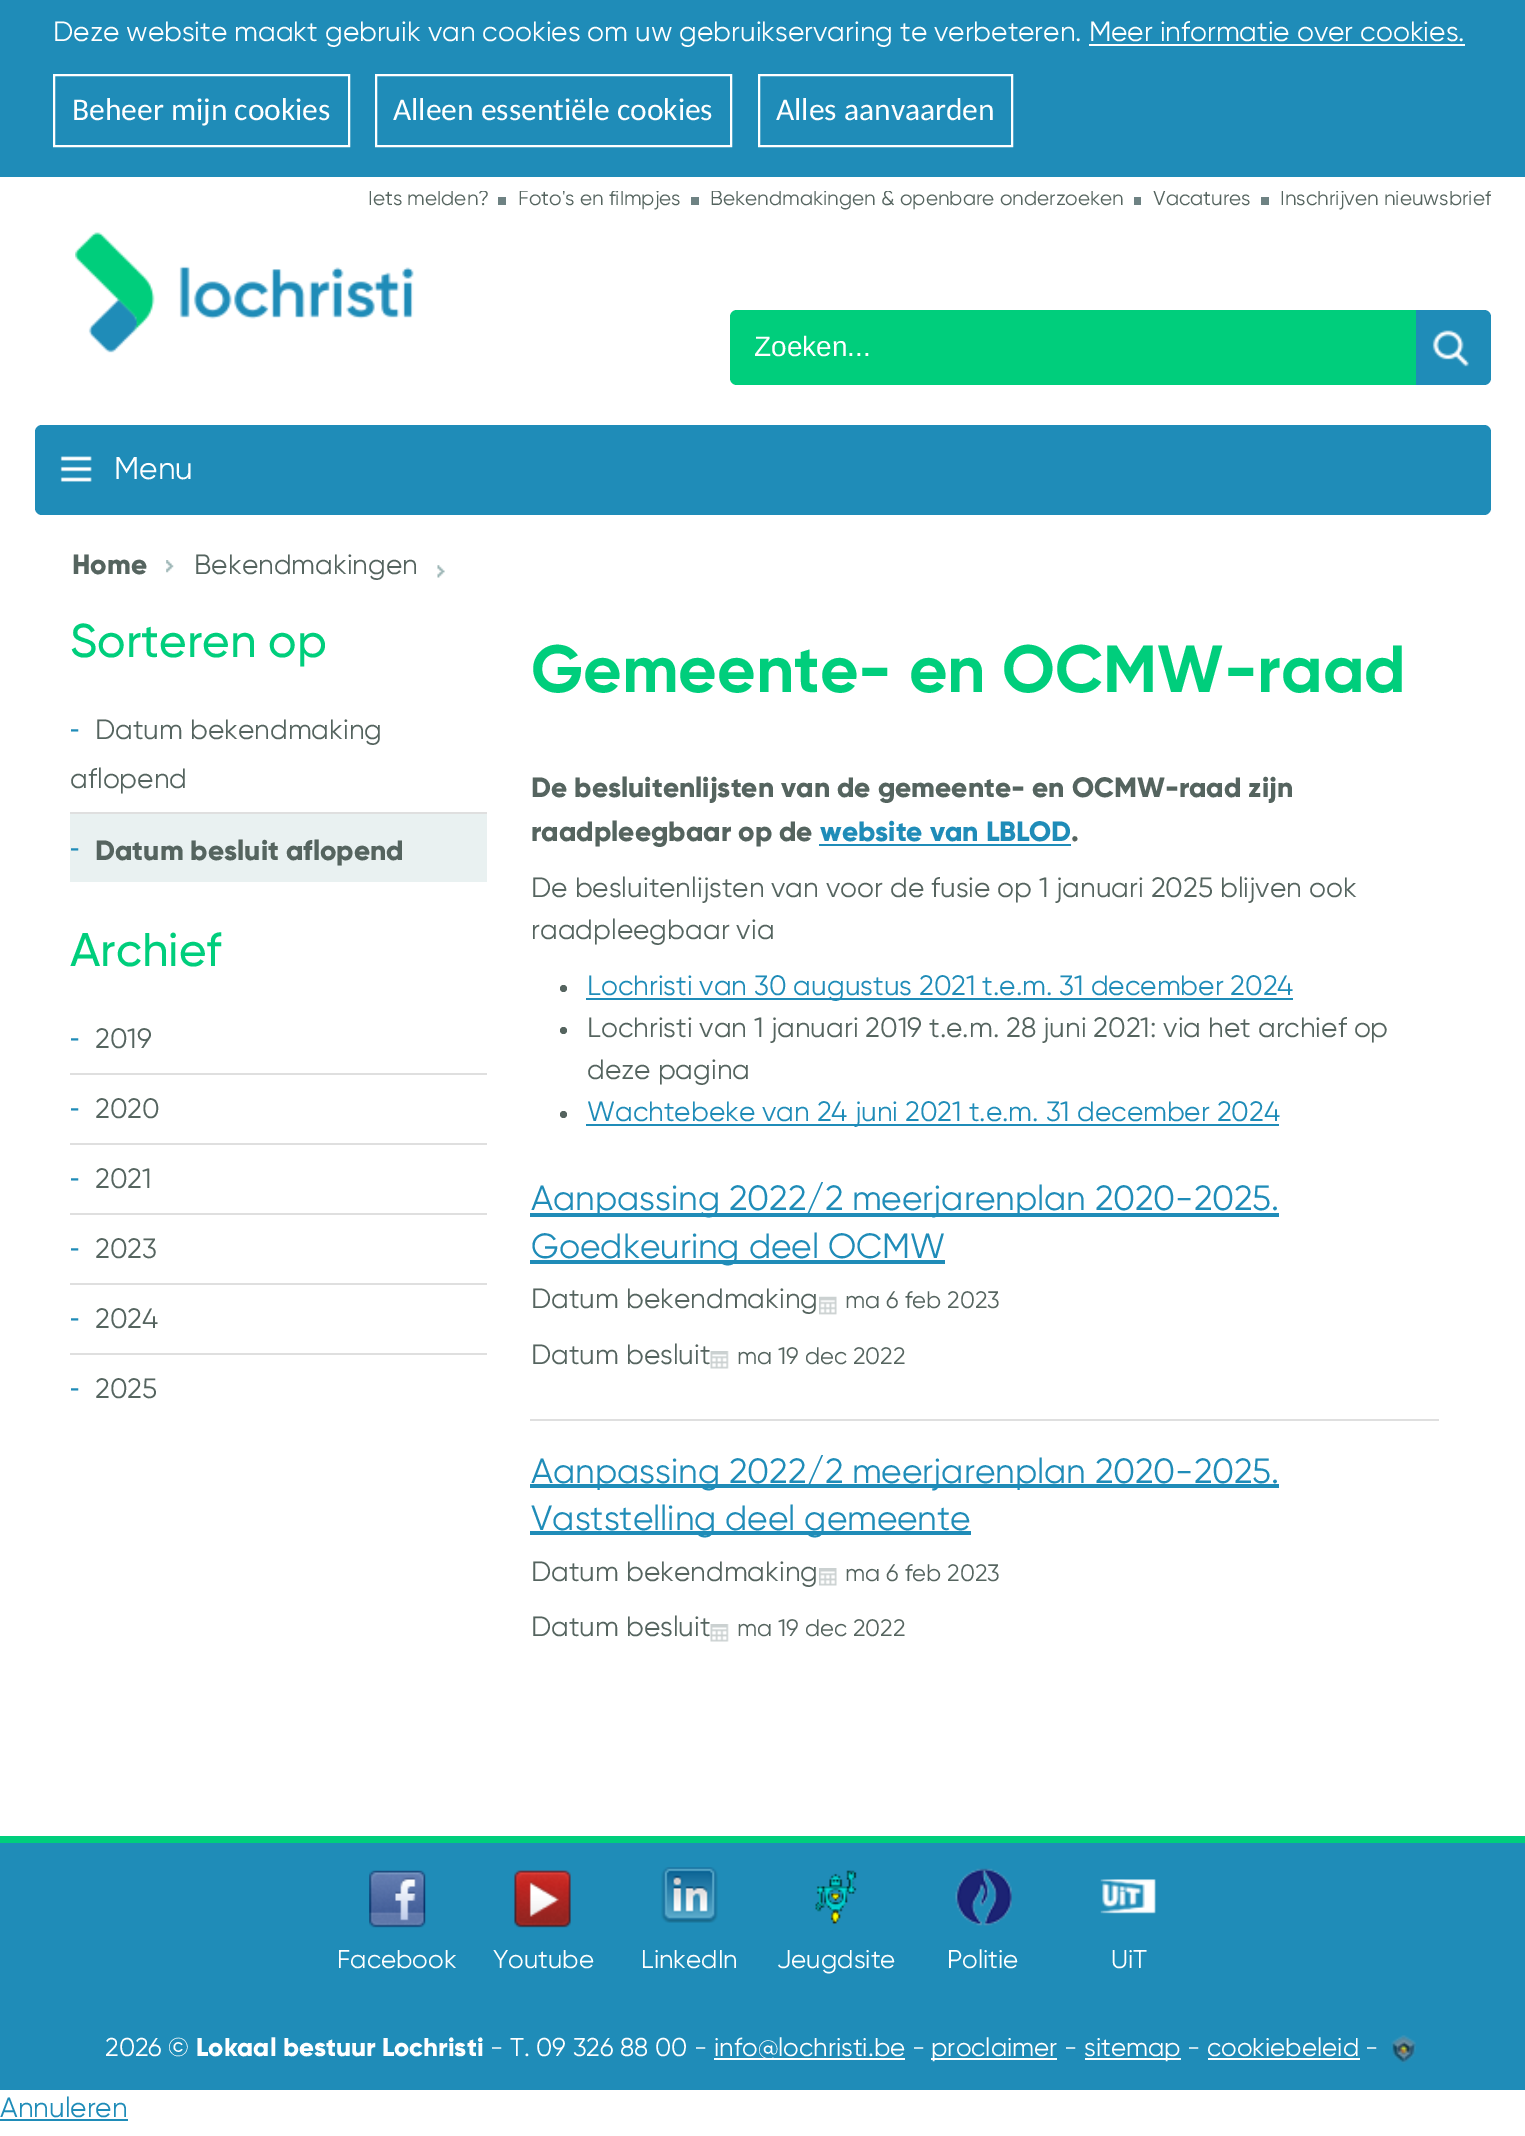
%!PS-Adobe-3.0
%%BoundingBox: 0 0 1525 2136
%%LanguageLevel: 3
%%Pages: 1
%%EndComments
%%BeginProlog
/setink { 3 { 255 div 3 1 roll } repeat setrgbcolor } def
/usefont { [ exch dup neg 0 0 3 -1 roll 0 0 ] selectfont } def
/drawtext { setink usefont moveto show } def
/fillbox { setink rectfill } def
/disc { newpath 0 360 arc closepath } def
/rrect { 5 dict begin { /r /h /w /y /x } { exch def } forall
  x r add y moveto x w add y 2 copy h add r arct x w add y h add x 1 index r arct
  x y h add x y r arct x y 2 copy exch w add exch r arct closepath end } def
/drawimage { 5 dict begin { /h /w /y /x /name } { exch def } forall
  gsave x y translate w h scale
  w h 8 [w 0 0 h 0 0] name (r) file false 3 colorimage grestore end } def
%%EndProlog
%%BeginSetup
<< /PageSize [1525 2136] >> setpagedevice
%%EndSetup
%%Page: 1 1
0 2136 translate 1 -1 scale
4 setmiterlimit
0 0 1525 2136 255 255 255 fillbox
0 0 1525 177 31 140 184 fillbox
(Deze website maakt gebruik van cookies om uw gebruikservaring te verbeteren. Meer informatie over cookies.) 53 41 /Gilroy-Regular 28 255 255 255 drawtext
1089 44 376 2 255 255 255 fillbox
2 setlinewidth
54 75 295 71 rectstroke
(Beheer mijn cookies) 72 120 /Carlito-Regular 31.5 255 255 255 drawtext
376 75 355 71 rectstroke
(Alleen essentiële cookies) 393 120 /Carlito-Regular 31.5 255 255 255 drawtext
759 75 253 71 rectstroke
(Alles aanvaarden) 776 120 /Carlito-Regular 31.5 255 255 255 drawtext
gsave
368 191 120 21 rectclip
(Iets melden?) 368 205 /Gilroy-Regular 20.75 85 100 95 drawtext
grestore
498 197 8 8 110 130 131 fillbox
gsave
497 191 184 21 rectclip
(Foto's en filmpjes) 518 205 /Gilroy-Regular 20.75 85 100 95 drawtext
grestore
691 197 8 8 110 130 131 fillbox
gsave
690 191 434 21 rectclip
(Bekendmakingen & openbare onderzoeken) 710 205 /Gilroy-Regular 20.75 85 100 95 drawtext
grestore
1134 197 7 8 110 130 131 fillbox
gsave
1132 191 119 21 rectclip
(Vacatures) 1153 205 /Gilroy-Regular 20.75 85 100 95 drawtext
grestore
1261 197 8 8 110 130 131 fillbox
gsave
1260 191 231 21 rectclip
(Inschrijven nieuwsbrief) 1280 205 /Gilroy-Regular 20.75 85 100 95 drawtext
grestore
(assets/img1.rgb) 75 232 339 121 drawimage
0 206 124 setink
737 310 moveto 1416 310 lineto 1416 385 lineto 737 385 lineto 733 385 730 382 730 378 curveto 730 317 lineto 730 313 733 310 737 310 curveto closepath fill
(Zoeken...) 754 356 /LiberationSans-Regular 28 255 255 255 drawtext
31 140 184 setink
1416 310 moveto 1484 310 lineto 1488 310 1491 313 1491 317 curveto 1491 378 lineto 1491 382 1488 385 1484 385 curveto 1416 385 lineto closepath fill
(assets/img2.rgb) 1432 330 37 37 drawimage
35 425 1456 90 7 rrect fill
(assets/img3.rgb) 60 456 32 26 drawimage
(Menu) 114 479 /Gilroy-Regular 31.5 255 255 255 drawtext
(Home) 72 574 /Gilroy-ExtraBold 28 85 100 95 drawtext
(assets/img4.rgb) 166 560 8 13 drawimage
(Bekendmakingen) 194 574 /Gilroy-Regular 28 85 100 95 drawtext
(assets/img5.rgb) 437 565 8 13 drawimage
(Sorteren op) 70 657 /Gilroy-Medium 47.25 0 206 124 drawtext
70 812 417 2 223 223 223 fillbox
(-) 70 737 /LiberationSerif-Bold 28 31 140 184 drawtext
(Datum bekendmaking) 95 739 /Gilroy-Regular 28 85 100 95 drawtext
(aflopend) 70 788 /Gilroy-Regular 28 85 100 95 drawtext
70 814 417 68 233 241 241 fillbox
(-) 70 856 /LiberationSerif-Bold 28 31 140 184 drawtext
(Datum besluit aflopend) 95 860 /Gilroy-ExtraBold 28 85 100 95 drawtext
(Archief) 70 966 /Gilroy-Medium 47.25 0 206 124 drawtext
70 1073 417 2 223 223 223 fillbox
(-) 70 1046 /LiberationSerif-Bold 28 31 140 184 drawtext
(2019) 95 1048 /Gilroy-Regular 28 85 100 95 drawtext
70 1143 417 2 223 223 223 fillbox
(-) 70 1116 /LiberationSerif-Bold 28 31 140 184 drawtext
(2020) 95 1118 /Gilroy-Regular 28 85 100 95 drawtext
70 1213 417 2 223 223 223 fillbox
(-) 70 1186 /LiberationSerif-Bold 28 31 140 184 drawtext
(2021) 95 1188 /Gilroy-Regular 28 85 100 95 drawtext
70 1283 417 2 223 223 223 fillbox
(-) 70 1256 /LiberationSerif-Bold 28 31 140 184 drawtext
(2023) 95 1258 /Gilroy-Regular 28 85 100 95 drawtext
70 1353 417 2 223 223 223 fillbox
(-) 70 1326 /LiberationSerif-Bold 28 31 140 184 drawtext
(2024) 95 1328 /Gilroy-Regular 28 85 100 95 drawtext
(-) 70 1396 /LiberationSerif-Bold 28 31 140 184 drawtext
(2025) 95 1398 /Gilroy-Regular 28 85 100 95 drawtext
(Gemeente- en OCMW-raad) 531 692 /Gilroy-Bold 66.5 0 206 124 drawtext
(De besluitenlijsten van de gemeente- en OCMW-raad zijn) 531 797 /Gilroy-ExtraBold 28 85 100 95 drawtext
(raadpleegbaar op de) 531 841 /Gilroy-ExtraBold 28 85 100 95 drawtext
(website van LBLOD) 820 841 /Gilroy-ExtraBold 28 31 140 184 drawtext
(.) 1071 841 /Gilroy-ExtraBold 28 85 100 95 drawtext
819 844 252 2 31 140 184 fillbox
(De besluitenlijsten van voor de fusie op 1 januari 2025 blijven ook) 531 897 /Gilroy-Regular 28 85 100 95 drawtext
(raadpleegbaar via) 531 939 /Gilroy-Regular 28 85 100 95 drawtext
563.5 988.5 3.5 disc fill
586 998 707 2 31 140 184 fillbox
(Lochristi van 30 augustus 2021 t.e.m. 31 december 2024) 587 995 /Gilroy-Regular 28 31 140 184 drawtext
85 100 95 setink
563.5 1030.5 3.5 disc fill
(Lochristi van 1 januari 2019 t.e.m. 28 juni 2021: via het archief op) 587 1037 /Gilroy-Regular 28 85 100 95 drawtext
(deze pagina) 587 1079 /Gilroy-Regular 28 85 100 95 drawtext
563.5 1114.5 3.5 disc fill
586 1124 693 2 31 140 184 fillbox
(Wachtebeke van 24 juni 2021 t.e.m. 31 december 2024) 587 1121 /Gilroy-Regular 28 31 140 184 drawtext
530 1419 909 2 223 223 223 fillbox
530 1213 749 4 31 140 184 fillbox
(Aanpassing 2022/2 meerjarenplan 2020-2025.) 531 1210 /Gilroy-Regular 35 31 140 184 drawtext
530 1260 415 4 31 140 184 fillbox
(Goedkeuring deel OCMW) 531 1258 /Gilroy-Regular 35 31 140 184 drawtext
(Datum bekendmaking) 531 1308 /Gilroy-Regular 28 85 100 95 drawtext
(assets/img6.rgb) 819 1296 18 19 drawimage
(ma 6 feb 2023) 845 1308 /Gilroy-Regular 23.75 85 100 95 drawtext
(Datum besluit) 531 1364 /Gilroy-Regular 28 85 100 95 drawtext
(assets/img7.rgb) 710 1351 19 18 drawimage
(ma 19 dec 2022) 737 1364 /Gilroy-Regular 23.75 85 100 95 drawtext
530 1484 749 4 31 140 184 fillbox
(Aanpassing 2022/2 meerjarenplan 2020-2025.) 531 1483 /Gilroy-Regular 35 31 140 184 drawtext
530 1531 441 4 31 140 184 fillbox
(Vaststelling deel gemeente) 531 1530 /Gilroy-Regular 35 31 140 184 drawtext
(Datum bekendmaking) 531 1581 /Gilroy-Regular 28 85 100 95 drawtext
(assets/img8.rgb) 819 1568 18 18 drawimage
(ma 6 feb 2023) 845 1581 /Gilroy-Regular 23.75 85 100 95 drawtext
(Datum besluit) 531 1636 /Gilroy-Regular 28 85 100 95 drawtext
(assets/img7.rgb) 710 1624 19 18 drawimage
(ma 19 dec 2022) 737 1636 /Gilroy-Regular 23.75 85 100 95 drawtext
0 1843 1525 247 31 140 184 fillbox
0 1836 1525 7 0 206 124 fillbox
(assets/img9.rgb) 369 1870 57 58 drawimage
(Facebook) 337 1968 /Gilroy-Regular 25.8 255 255 255 drawtext
(assets/img10.rgb) 514 1870 57 58 drawimage
(Youtube) 493 1968 /Gilroy-Regular 25.8 255 255 255 drawtext
(assets/img11.rgb) 661 1867 57 56 drawimage
(LinkedIn) 641 1968 /Gilroy-Regular 25.8 255 255 255 drawtext
(assets/img12.rgb) 815 1870 42 54 drawimage
(Jeugdsite) 777 1968 /Gilroy-Regular 25.8 255 255 255 drawtext
(assets/img13.rgb) 955 1868 57 58 drawimage
(Politie) 947 1968 /Gilroy-Regular 25.8 255 255 255 drawtext
(assets/img14.rgb) 1100 1879 56 35 drawimage
(UiT) 1111 1968 /Gilroy-Regular 25.8 255 255 255 drawtext
(2026 ©) 105 2056 /Gilroy-Regular 25.8 255 255 255 drawtext
(Lokaal bestuur Lochristi) 196 2056 /Gilroy-ExtraBold 25.8 255 255 255 drawtext
(- T. 09 326 88 00 -) 490 2056 /Gilroy-Regular 25.8 255 255 255 drawtext
714 2058 191 2 255 255 255 fillbox
(info@lochristi.be -) 714 2056 /Gilroy-Regular 25.8 255 255 255 drawtext
931 2058 126 2 255 255 255 fillbox
(proclaimer -) 931 2056 /Gilroy-Regular 25.8 255 255 255 drawtext
1085 2058 96 2 255 255 255 fillbox
(sitemap - cookiebeleid -) 1084 2056 /Gilroy-Regular 25.8 255 255 255 drawtext
(assets/img15.rgb) 1391 2035 25 29 drawimage
1208 2058 152 2 255 255 255 fillbox
(Annuleren) 0 2117 /Gilroy-Regular 28 31 140 184 drawtext
0 2119 128 2 31 140 184 fillbox
showpage
%%EOF
